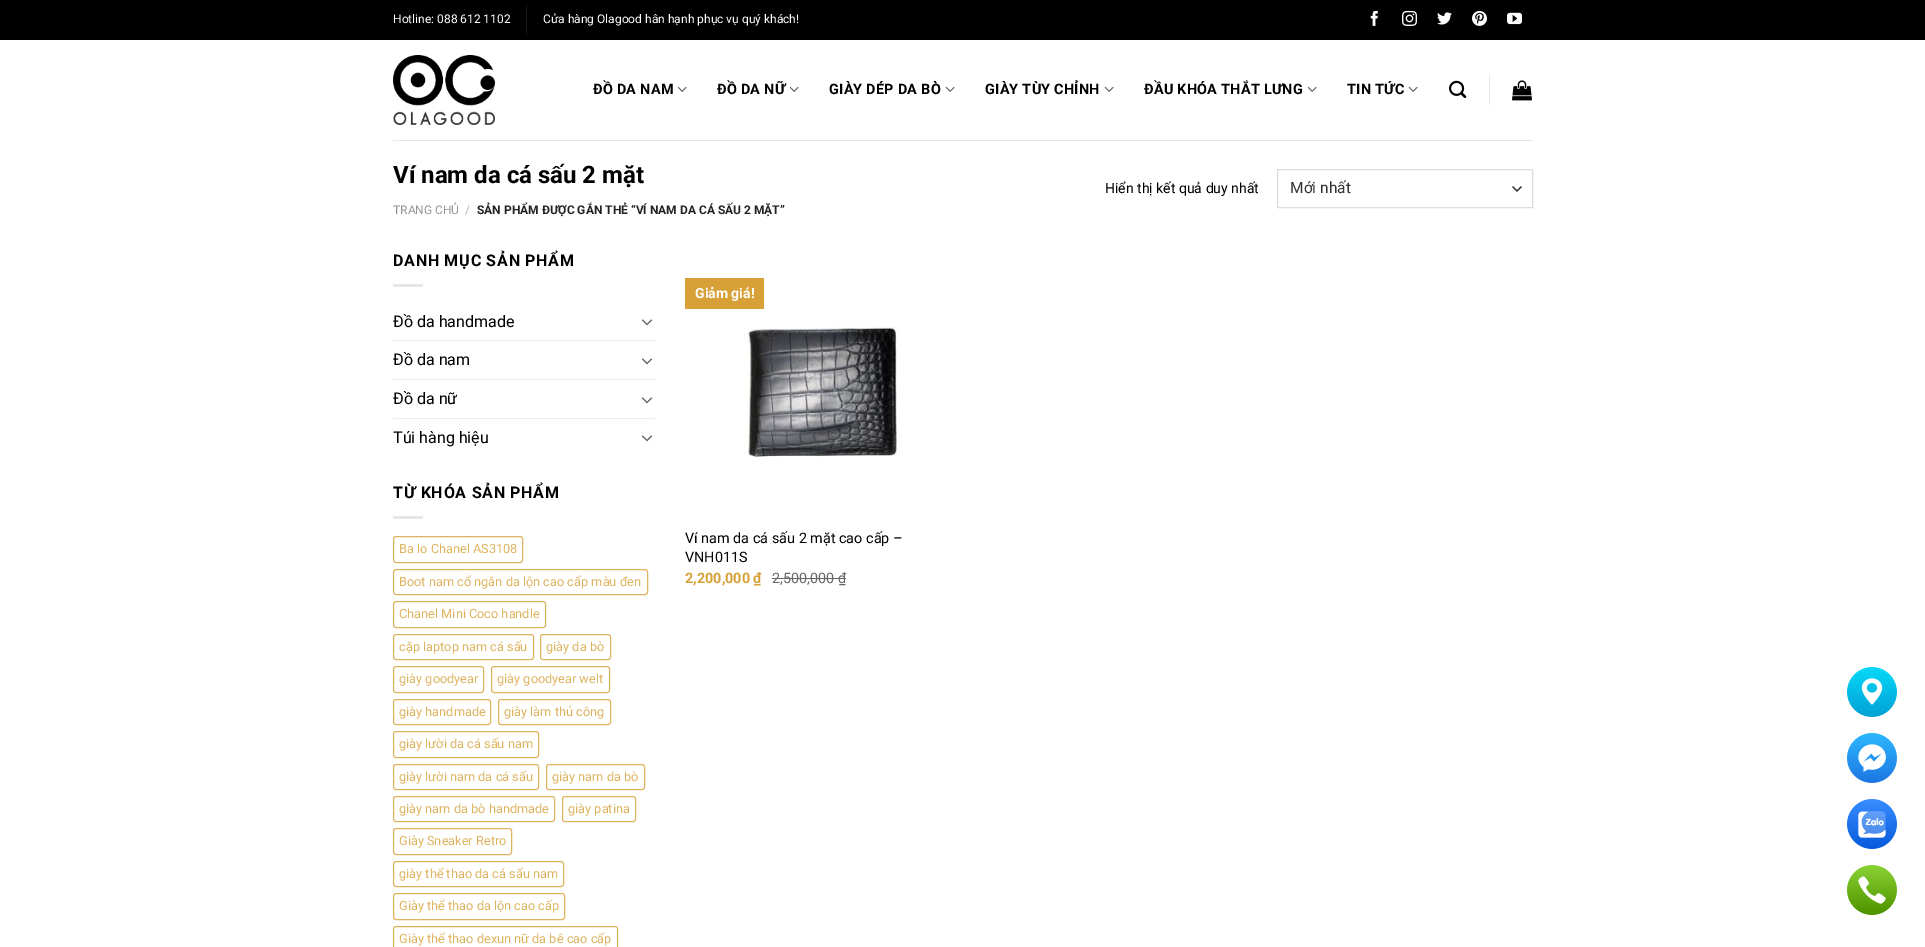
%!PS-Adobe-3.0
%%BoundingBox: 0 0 1925 947
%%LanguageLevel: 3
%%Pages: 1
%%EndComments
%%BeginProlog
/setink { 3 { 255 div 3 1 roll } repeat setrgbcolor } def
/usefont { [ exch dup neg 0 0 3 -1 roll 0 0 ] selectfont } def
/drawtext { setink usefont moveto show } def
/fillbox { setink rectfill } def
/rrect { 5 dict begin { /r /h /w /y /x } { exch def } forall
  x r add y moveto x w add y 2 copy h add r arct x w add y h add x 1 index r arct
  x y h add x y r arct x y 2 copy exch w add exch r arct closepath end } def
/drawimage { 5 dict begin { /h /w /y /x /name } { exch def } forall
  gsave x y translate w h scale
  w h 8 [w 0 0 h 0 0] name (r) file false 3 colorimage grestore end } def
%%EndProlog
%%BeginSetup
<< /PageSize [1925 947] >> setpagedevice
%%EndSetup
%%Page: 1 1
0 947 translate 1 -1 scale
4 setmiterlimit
0 0 1925 947 255 255 255 fillbox
0 0 1925 40 0 0 0 fillbox
(Hotline: 088 612 1102) 393 23 /Roboto-Regular 12 255 255 255 drawtext
526 5 1 30 26 26 26 fillbox
(Cửa hàng Olagood hân hạnh phục vụ quý khách!) 543 23 /Roboto-Regular 12 255 255 255 drawtext
(assets/img1.rgb) 1370 10 8 16 drawimage
(assets/img2.rgb) 1402 10 15 16 drawimage
(assets/img3.rgb) 1437 12 15 13 drawimage
(assets/img4.rgb) 1472 10 15 16 drawimage
(assets/img5.rgb) 1507 12 15 13 drawimage
(assets/img6.rgb) 393 55 102 70 drawimage
/Roboto-Bold 14.4 usefont
0 0 0 setink
593 94 moveto 0.25 0 (ĐỒ DA NAM) ashow
(assets/img7.rgb) 677 86 10 6 drawimage
717 94 moveto 0.25 0 (ĐỒ DA NỮ) ashow
(assets/img7.rgb) 789 86 10 6 drawimage
829 94 moveto 0.25 0 (GIÀY DÉP DA BÒ) ashow
(assets/img7.rgb) 945 86 10 6 drawimage
985 94 moveto 0.25 0 (GIÀY TÙY CHỈNH) ashow
(assets/img7.rgb) 1104 86 10 6 drawimage
1144 94 moveto 0.25 0 (ĐẦU KHÓA THẮT LƯNG) ashow
(assets/img7.rgb) 1307 86 10 6 drawimage
1347 94 moveto 0.25 0 (TIN TỨC) ashow
(assets/img7.rgb) 1408 86 10 6 drawimage
(assets/img8.rgb) 1449 80 18 18 drawimage
1489 75 1 30 230 230 230 fillbox
(assets/img9.rgb) 1512 80 20 21 drawimage
393 140 1140 1 230 230 230 fillbox
(Ví nam da cá sấu 2 mặt) 393 183 /Roboto-Bold 24 0 0 0 drawtext
(TRANG CHỦ) 393 214 /Roboto-Regular 12 148 148 148 drawtext
(/) 465 214 /Roboto-Regular 12 178 178 178 drawtext
(SẢN PHẨM ĐƯỢC GẮN THẺ “VÍ NAM DA CÁ SẤU 2 MẶT”) 477 214 /Roboto-Bold 12 34 34 34 drawtext
(Hiển thị kết quả duy nhất) 1105 193 /Roboto-Regular 14 0 0 0 drawtext
51 51 51 setink
1.3 setlinewidth
1 setlinecap
1 setlinejoin
1513 187 moveto 1517 191 lineto 1521 187 lineto stroke
221 221 221 setink
1 setlinewidth
0 setlinecap
0 setlinejoin
1277.5 169.5 255 38 rectstroke
(Mới nhất) 1290 193 /Roboto-Regular 15.5 51 51 51 drawtext
/Roboto-Bold 16 usefont
0 0 0 setink
393 266 moveto 0.75 0 (DANH MỤC SẢN PHẨM) ashow
393 284 30 3 230 230 230 fillbox
(Đồ da handmade) 393 327 /Roboto-Regular 16 0 0 0 drawtext
(assets/img10.rgb) 641 319 12 7 drawimage
393 340 262 1 236 236 236 fillbox
(Đồ da nam) 393 365 /Roboto-Regular 16 0 0 0 drawtext
(assets/img10.rgb) 641 358 12 7 drawimage
393 379 262 1 236 236 236 fillbox
(Đồ da nữ) 393 404 /Roboto-Regular 16 0 0 0 drawtext
(assets/img10.rgb) 641 397 12 7 drawimage
393 418 262 1 236 236 236 fillbox
(Túi hàng hiệu) 393 443 /Roboto-Regular 16 0 0 0 drawtext
(assets/img10.rgb) 641 435 12 7 drawimage
/Roboto-Bold 16 usefont
393 498 moveto 0.75 0 (TỪ KHÓA SẢN PHẨM) ashow
393 516 30 3 230 230 230 fillbox
223 180 95 setink
393.5 536.5 129 26 2.5 rrect stroke
(Ba lo Chanel AS3108) 399 553 /Roboto-Regular 12.75 223 180 95 drawtext
393.5 569.5 254 25 2.5 rrect stroke
(Boot nam cổ ngắn da lộn cao cấp màu đen) 399 586 /Roboto-Regular 12.75 223 180 95 drawtext
393.5 601.5 152 26 2.5 rrect stroke
(Chanel Mini Coco handle) 399 618 /Roboto-Regular 12.75 223 180 95 drawtext
393.5 634.5 140 25 2.5 rrect stroke
(cặp laptop nam cá sấu) 399 651 /Roboto-Regular 12.75 223 180 95 drawtext
540.5 634.5 70 25 2.5 rrect stroke
(giày da bò) 546 651 /Roboto-Regular 12.75 223 180 95 drawtext
393.5 666.5 90 26 2.5 rrect stroke
(giày goodyear) 399 683 /Roboto-Regular 12.75 223 180 95 drawtext
491.5 666.5 118 26 2.5 rrect stroke
(giày goodyear welt) 497 683 /Roboto-Regular 12.75 223 180 95 drawtext
393.5 699.5 97 25 2.5 rrect stroke
(giày handmade) 399 716 /Roboto-Regular 12.75 223 180 95 drawtext
498.5 699.5 112 25 2.5 rrect stroke
(giày làm thủ công) 504 716 /Roboto-Regular 12.75 223 180 95 drawtext
393.5 731.5 145 26 2.5 rrect stroke
(giày lười da cá sấu nam) 399 748 /Roboto-Regular 12.75 223 180 95 drawtext
393.5 764.5 145 25 2.5 rrect stroke
(giày lười nam da cá sấu) 399 781 /Roboto-Regular 12.75 223 180 95 drawtext
546.5 764.5 98 25 2.5 rrect stroke
(giày nam da bò) 552 781 /Roboto-Regular 12.75 223 180 95 drawtext
393.5 796.5 161 25 2.5 rrect stroke
(giày nam da bò handmade) 399 813 /Roboto-Regular 12.75 223 180 95 drawtext
562.5 796.5 73 25 2.5 rrect stroke
(giày patina) 568 813 /Roboto-Regular 12.75 223 180 95 drawtext
393.5 828.5 118 26 2.5 rrect stroke
(Giày Sneaker Retro) 399 845 /Roboto-Regular 12.75 223 180 95 drawtext
393.5 861.5 170 25 2.5 rrect stroke
(giày thể thao da cá sấu nam) 399 878 /Roboto-Regular 12.75 223 180 95 drawtext
393.5 893.5 171 26 2.5 rrect stroke
(Giày thể thao da lộn cao cấp) 399 910 /Roboto-Regular 12.75 223 180 95 drawtext
393.5 926.5 224 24 2.5 rrect stroke
(Giày thể thao dexun nữ da bê cao cấp) 399 943 /Roboto-Regular 12.75 223 180 95 drawtext
685 278 79 31 215 161 55 fillbox
(Giảm giá!) 695 298 /Roboto-Bold 14 255 255 255 drawtext
(assets/img11.rgb) 743 327 157 130 drawimage
(Ví nam da cá sấu 2 mặt cao cấp –) 685 543 /Roboto-Regular 14.4 0 0 0 drawtext
(VNH011S) 685 562 /Roboto-Regular 14.4 0 0 0 drawtext
(2,200,000 ₫) 685 583 /Roboto-Bold 14.4 215 161 55 drawtext
(2,500,000 ₫) 772 583 /Roboto-Regular 14.4 102 102 102 drawtext
772 578 74 1 102 102 102 fillbox
(assets/img12.rgb) 1847 667 50 50 drawimage
(assets/img13.rgb) 1847 733 50 50 drawimage
(assets/img14.rgb) 1847 799 50 50 drawimage
(assets/img15.rgb) 1847 865 50 50 drawimage
showpage
%%EOF
